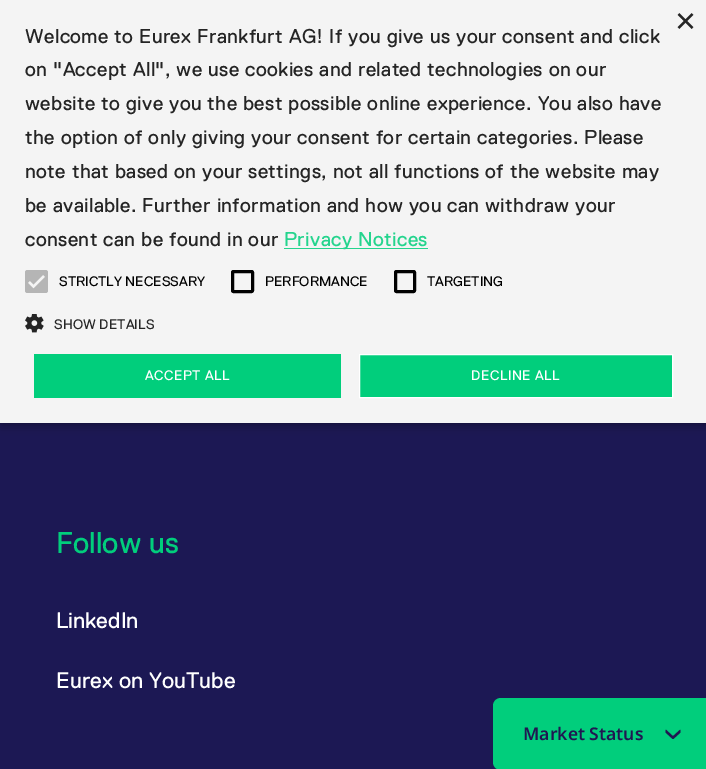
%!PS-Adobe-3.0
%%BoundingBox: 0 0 706 769
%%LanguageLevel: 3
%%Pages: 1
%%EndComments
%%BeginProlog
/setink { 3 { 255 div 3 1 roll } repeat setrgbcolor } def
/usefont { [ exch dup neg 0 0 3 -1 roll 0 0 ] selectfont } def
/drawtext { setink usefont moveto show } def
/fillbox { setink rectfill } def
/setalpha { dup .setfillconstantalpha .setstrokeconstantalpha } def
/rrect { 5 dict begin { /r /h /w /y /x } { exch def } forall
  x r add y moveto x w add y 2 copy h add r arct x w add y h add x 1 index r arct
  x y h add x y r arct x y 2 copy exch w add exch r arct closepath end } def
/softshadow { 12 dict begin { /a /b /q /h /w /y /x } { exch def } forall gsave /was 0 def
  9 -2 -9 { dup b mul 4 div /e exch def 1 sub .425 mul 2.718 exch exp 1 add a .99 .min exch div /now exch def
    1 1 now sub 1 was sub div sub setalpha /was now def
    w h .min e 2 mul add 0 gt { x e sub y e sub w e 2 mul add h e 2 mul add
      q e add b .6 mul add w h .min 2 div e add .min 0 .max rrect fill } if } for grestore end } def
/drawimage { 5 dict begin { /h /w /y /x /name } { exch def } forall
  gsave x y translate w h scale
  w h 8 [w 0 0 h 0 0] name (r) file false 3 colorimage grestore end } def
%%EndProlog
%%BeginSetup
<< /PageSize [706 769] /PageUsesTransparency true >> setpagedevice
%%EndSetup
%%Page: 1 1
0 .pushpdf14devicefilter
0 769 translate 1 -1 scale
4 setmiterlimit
0 0 706 769 28 24 84 fillbox
0 0 0 setink
1 3 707 422 0 5 0.35 softshadow
0 0 706 423 244 244 244 fillbox
(×) 675 33 /LiberationSans-Regular 36 37 37 37 drawtext
/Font-Regular 20 usefont
25 43 moveto 0.38 0 (Welcome to Eurex Frankfurt AG! If you give us your consent and click) ashow
25 76 moveto 0.38 0 (on "Accept All", we use cookies and related technologies on our) ashow
25 110 moveto 0.38 0 (website to give you the best possible online experience. You also have) ashow
25 144 moveto 0.38 0 (the option of only giving your consent for certain categories. Please) ashow
25 178 moveto 0.38 0 (note that based on your settings, not all functions of the website may) ashow
25 212 moveto 0.38 0 (be available. Further information and how you can withdraw your) ashow
25 246 moveto 0.38 0 (consent can be found in our) ashow
284 248 144 1 37 212 142 fillbox
284 246 moveto 0.38 0 (Privacy Notices) ashow
181 181 181 setink
25 270 23 23 2.5 rrect fill
244 244 244 setink
2.3 setlinewidth
29 282 moveto 33.5 286.5 lineto 44 276 lineto stroke
(STRICTLY NECESSARY) 59 286 /Font-Regular 13.75 0 0 0 drawtext
3 setlinewidth
232.5 271.5 20 20 1 rrect stroke
(PERFORMANCE) 265 286 /Font-Regular 13.75 0 0 0 drawtext
395.5 271.5 19 20 1 rrect stroke
(TARGETING) 427 286 /Font-Regular 13.75 0 0 0 drawtext
(assets/img1.rgb) 25 314 19 19 drawimage
37 37 37 setink
54 329 moveto 0.1 0 (SHOW DETAILS) ashow
34 354 307 44 1 206 124 fillbox
255 255 255 setink
145 380 moveto 0.5 0 (ACCEPT ALL) ashow
1 206 124 setink
359.5 354.5 moveto 672.5 354.5 lineto 672.5 397.5 lineto 359.5 397.5 lineto closepath gsave fill grestore
255 255 255 setink
1 setlinewidth
stroke
471 380 moveto 0.5 0 (DECLINE ALL) ashow
(Follow us) 56 553 /Font-Regular 30 1 206 124 drawtext
(LinkedIn) 56 628 /Font-Regular 22.5 255 255 255 drawtext
(Eurex on YouTube) 56 688 /Font-Regular 22.5 255 255 255 drawtext
1 206 124 setink
501 698 moveto 706 698 lineto 706 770 lineto 501 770 lineto 496.5 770 493 766.5 493 762 curveto 493 706 lineto 493 701.5 496.5 698 501 698 curveto closepath fill
(Market Status) 523 740 /NotoSans-SemiBold 17.5 32 23 81 drawtext
/LiberationSans-Regular 38 usefont
gsave 663 728 translate 90 rotate 0 0 moveto (›) show grestore
.poppdf14devicefilter showpage
%%EOF
